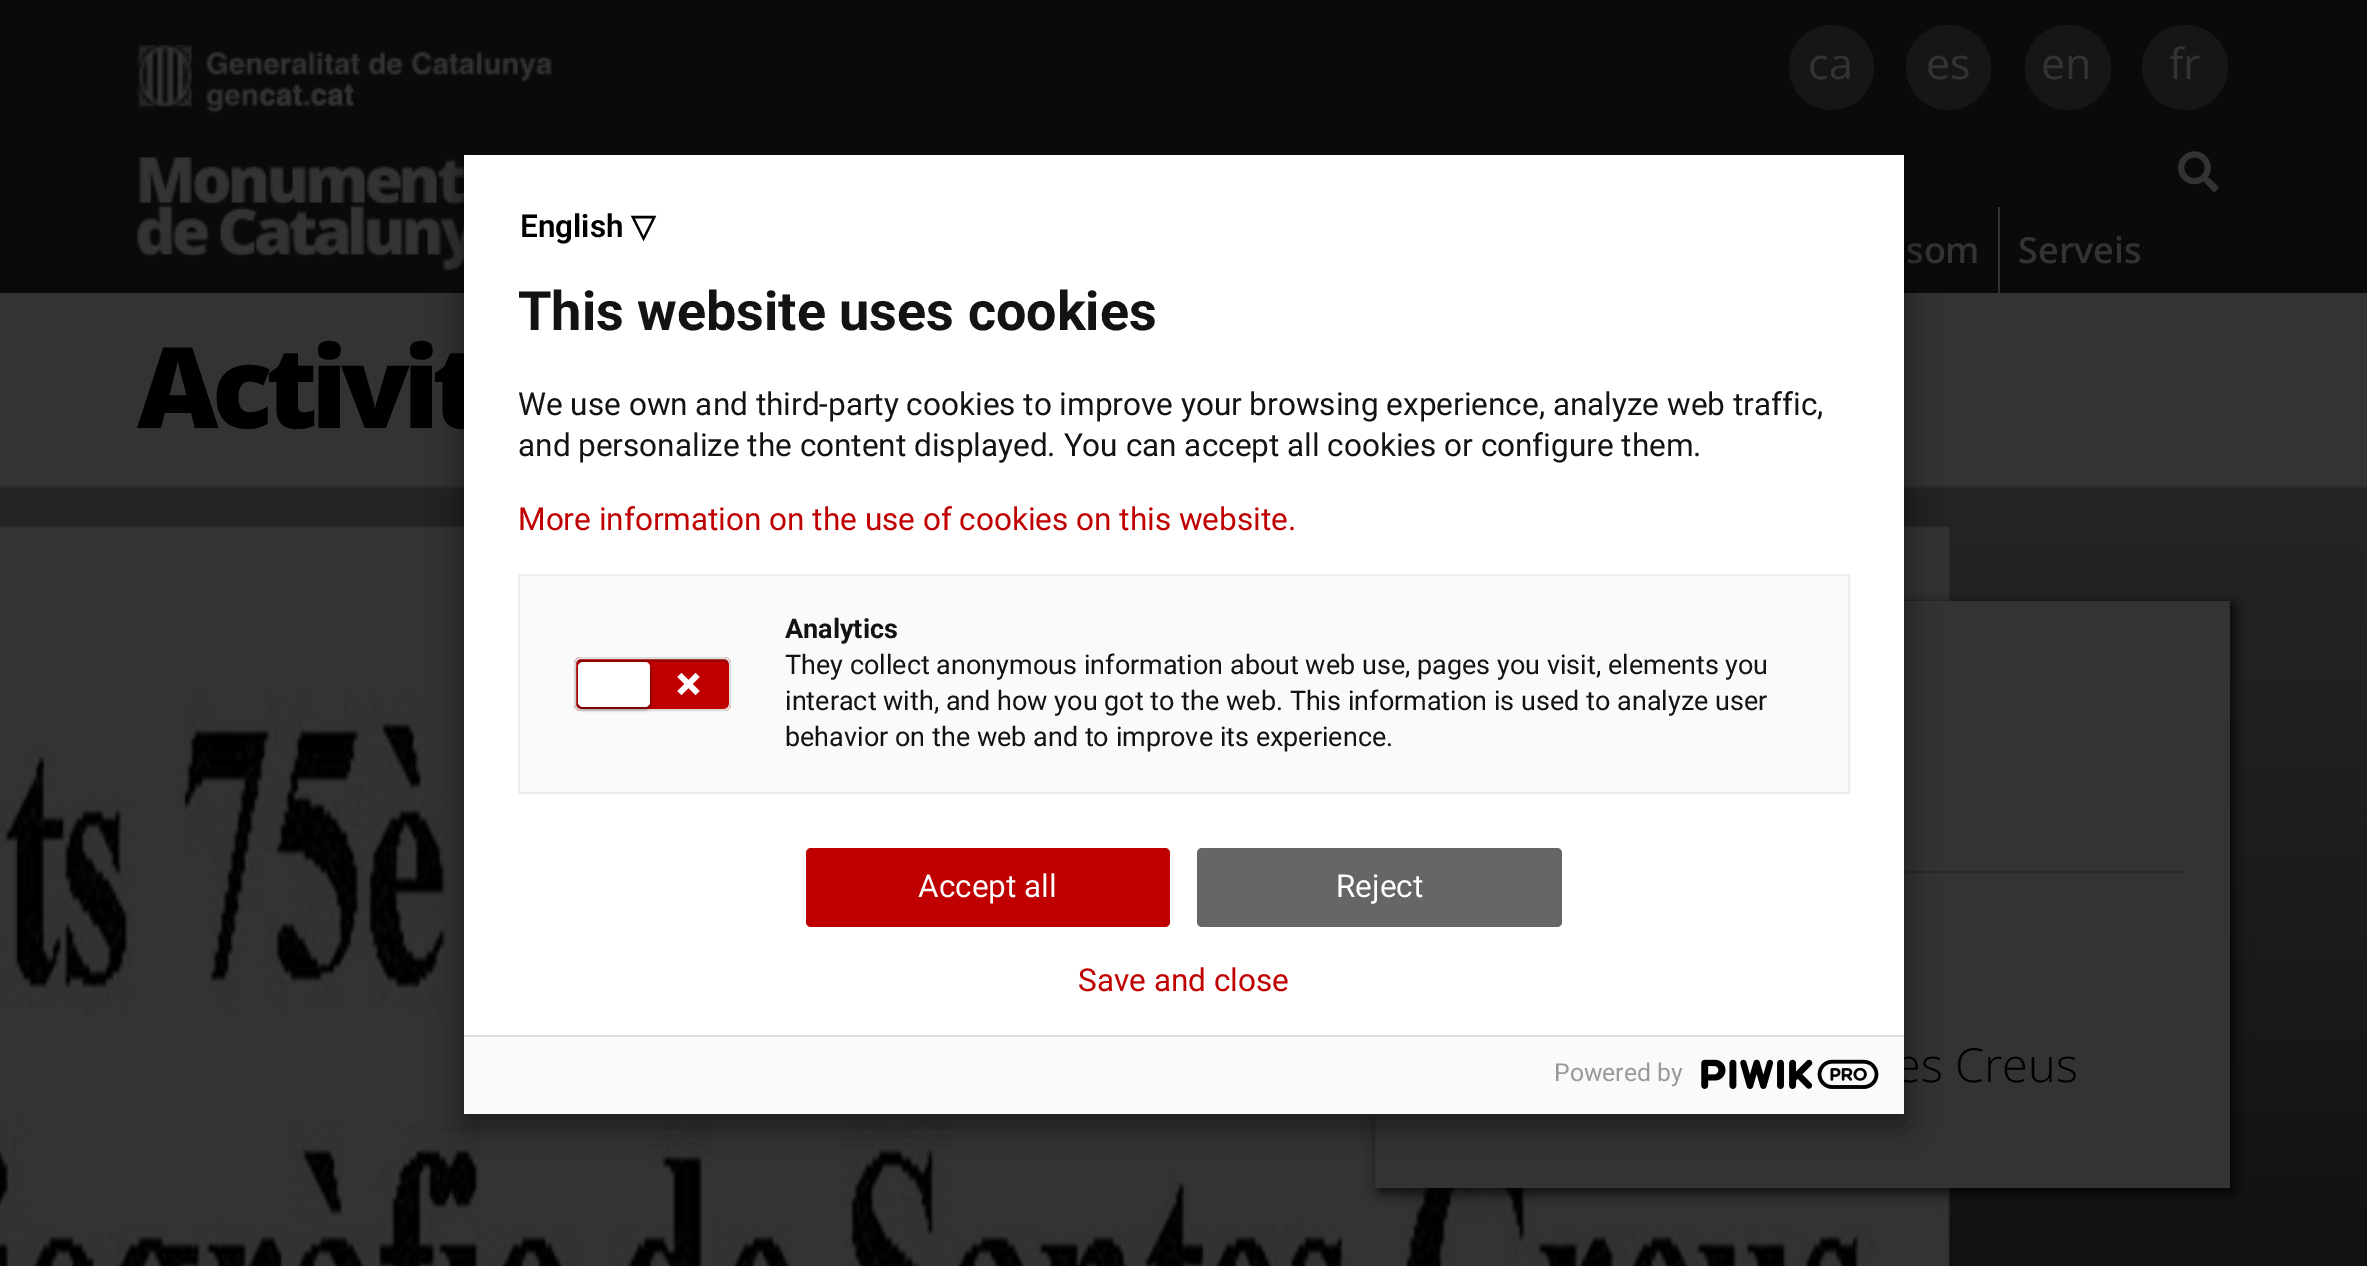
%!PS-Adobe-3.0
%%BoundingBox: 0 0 2367 1266
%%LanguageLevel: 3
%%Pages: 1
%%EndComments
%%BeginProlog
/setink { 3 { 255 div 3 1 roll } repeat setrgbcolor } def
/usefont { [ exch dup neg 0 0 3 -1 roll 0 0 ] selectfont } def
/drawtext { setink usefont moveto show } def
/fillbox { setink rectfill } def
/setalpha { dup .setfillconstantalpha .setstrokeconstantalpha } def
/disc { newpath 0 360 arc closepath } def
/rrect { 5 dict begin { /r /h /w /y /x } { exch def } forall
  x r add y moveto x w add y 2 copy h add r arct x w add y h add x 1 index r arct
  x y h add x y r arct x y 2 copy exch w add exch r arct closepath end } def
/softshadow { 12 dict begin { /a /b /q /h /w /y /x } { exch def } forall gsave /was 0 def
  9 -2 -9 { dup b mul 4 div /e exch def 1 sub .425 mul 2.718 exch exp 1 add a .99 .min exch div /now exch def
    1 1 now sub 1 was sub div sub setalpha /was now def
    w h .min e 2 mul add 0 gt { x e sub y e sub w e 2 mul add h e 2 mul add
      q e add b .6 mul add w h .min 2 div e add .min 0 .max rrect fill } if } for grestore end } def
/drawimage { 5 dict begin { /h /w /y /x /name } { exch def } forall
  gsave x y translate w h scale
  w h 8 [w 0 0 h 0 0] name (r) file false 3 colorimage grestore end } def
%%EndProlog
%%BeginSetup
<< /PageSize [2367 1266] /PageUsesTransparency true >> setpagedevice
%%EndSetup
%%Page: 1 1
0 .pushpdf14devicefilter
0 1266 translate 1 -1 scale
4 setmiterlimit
0 0 2367 1266 51 51 51 fillbox
0 0 2367 293 10 10 10 fillbox
(assets/img1.rgb) 137 45 415 68 drawimage
22 22 22 setink
1831.5 67.5 42.5 disc fill
(ca) 1808 79 /OpenSans-Regular 43 51 51 51 drawtext
22 22 22 setink
1948.5 67.5 42.5 disc fill
(es) 1926 79 /OpenSans-Regular 43 51 51 51 drawtext
22 22 22 setink
2025 25 86 85 42.5 rrect fill
(en) 2041 79 /OpenSans-Regular 43 51 51 51 drawtext
22 22 22 setink
2142 25 86 85 42.5 rrect fill
(fr) 2169 79 /OpenSans-Regular 43 51 51 51 drawtext
(assets/img2.rgb) 137 157 327 113 drawimage
(som) 1906 263 /OpenSans-SemiBold 36 51 51 51 drawtext
1998 207 2 86 51 51 51 fillbox
(Serveis) 2018 263 /OpenSans-SemiBold 36 51 51 51 drawtext
(assets/img3.rgb) 2178 151 41 41 drawimage
0 486 2367 2 43 43 43 fillbox
/OpenSans-ExtraBold 112.5 usefont
0 0 0 setink
137 428 moveto -6.75 0 (Activit) ashow
(assets/img6.rgb) 0 488 2367 778 drawimage
1379 605 855 588 0 7 0.8 softshadow
1375 601 855 587 51 51 51 fillbox
1904 871 281 2 43 43 43 fillbox
0 0 0 setink
464 167 1440 958 0 17 0.5 softshadow
464 155 1440 880 255 255 255 fillbox
(English) 520 237 /Roboto-SemiBold 31.5 0 0 0 drawtext
(▽) 631 237 /DejaVuSans-Bold 31.5 0 0 0 drawtext
(This website uses cookies) 518 330 /Roboto-Bold 54 19 19 19 drawtext
(We use own and third-party cookies to improve your browsing experience, analyze web traffic,) 518 415 /Roboto-Regular 31.5 19 19 19 drawtext
(and personalize the content displayed. You can accept all cookies or configure them.) 518 456 /Roboto-Regular 31.5 19 19 19 drawtext
(More information on the use of cookies on this website.) 518 530 /Roboto-Regular 31.5 192 0 0 drawtext
250 250 250 setink
519 575 moveto 1849 575 lineto 1849 793 lineto 519 793 lineto closepath gsave fill grestore
238 238 238 setink
2 setlinewidth
stroke
192 0 0 setink
574 657 157 54 7 rrect fill
154 0 0 setink
580 662 moveto 724 662 lineto 727 662 729 664 729 666 curveto 729 664 lineto 729 661 727 659 724 659 curveto 581 659 lineto 578 659 576 661 576 664 curveto 576 666 lineto 576 664 578 662 580 662 curveto closepath fill
221 221 221 setink
575 658 155 52 6 rrect stroke
0 0 0 setink
578 664 72 45 5 2 0.5 softshadow
255 255 255 setink
578 662 72 45 5 rrect fill
(assets/img4.rgb) 677 672 23 24 drawimage
(Analytics) 785 638 /Roboto-Bold 27 19 19 19 drawtext
(They collect anonymous information about web use, pages you visit, elements you) 785 674 /Roboto-Regular 27 19 19 19 drawtext
(interact with, and how you got to the web. This information is used to analyze user) 785 710 /Roboto-Regular 27 19 19 19 drawtext
(behavior on the web and to improve its experience.) 785 746 /Roboto-Regular 27 19 19 19 drawtext
192 0 0 setink
806 848 364 79 5 rrect fill
(Accept all) 918 897 /Roboto-Regular 31.5 255 255 255 drawtext
102 102 102 setink
1197 848 365 79 5 rrect fill
(Reject) 1336 897 /Roboto-Regular 31.5 255 255 255 drawtext
(Save and close) 1078 991 /Roboto-Regular 31.5 192 0 0 drawtext
(es Creus) 1895 1082 /OpenSans-Light 47 0 0 0 drawtext
464 1037 1440 77 250 250 250 fillbox
464 1035 1440 2 221 221 221 fillbox
(Powered by) 1554 1081 /Roboto-Regular 24.75 153 153 153 drawtext
(assets/img5.rgb) 1701 1059 178 30 drawimage
.poppdf14devicefilter showpage
%%EOF
